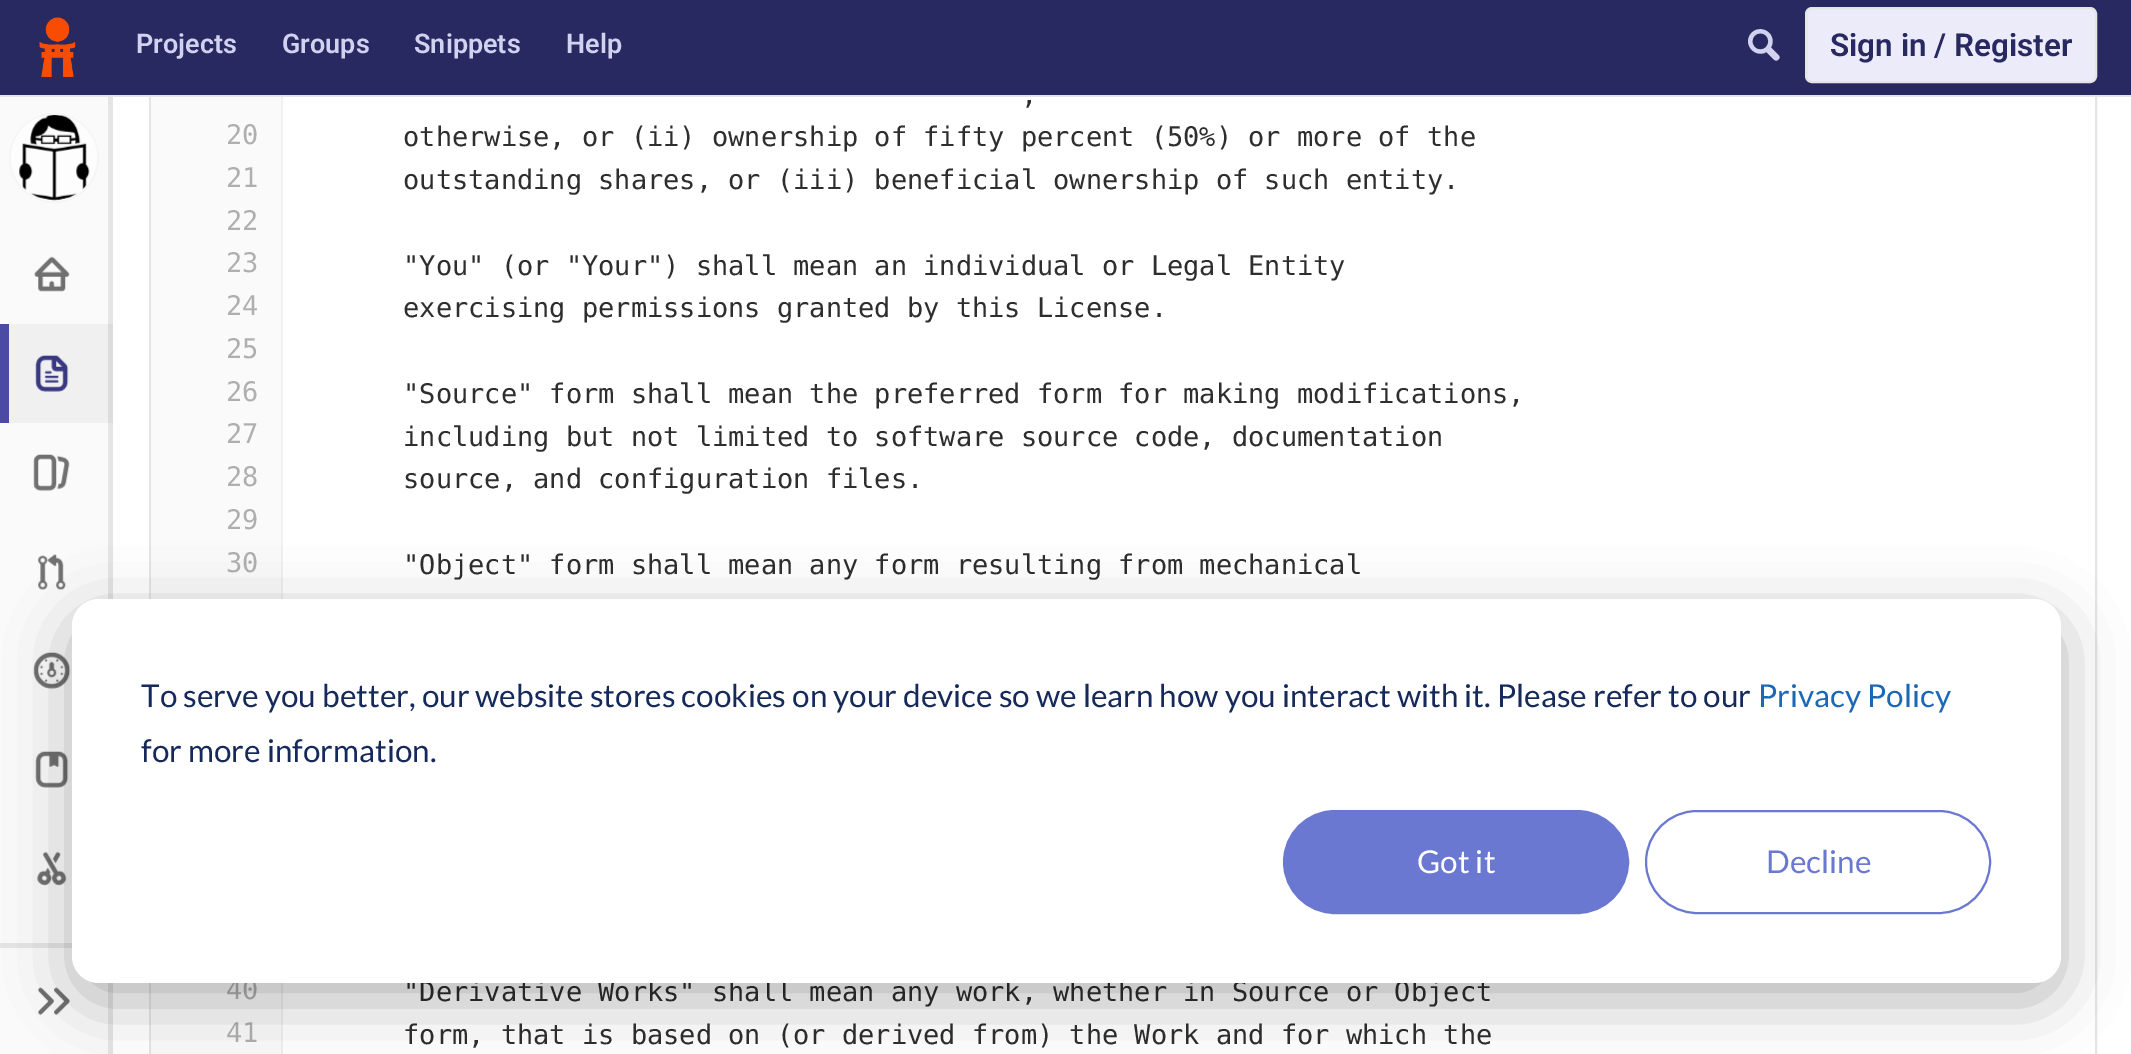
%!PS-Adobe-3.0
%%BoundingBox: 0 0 2131 1054
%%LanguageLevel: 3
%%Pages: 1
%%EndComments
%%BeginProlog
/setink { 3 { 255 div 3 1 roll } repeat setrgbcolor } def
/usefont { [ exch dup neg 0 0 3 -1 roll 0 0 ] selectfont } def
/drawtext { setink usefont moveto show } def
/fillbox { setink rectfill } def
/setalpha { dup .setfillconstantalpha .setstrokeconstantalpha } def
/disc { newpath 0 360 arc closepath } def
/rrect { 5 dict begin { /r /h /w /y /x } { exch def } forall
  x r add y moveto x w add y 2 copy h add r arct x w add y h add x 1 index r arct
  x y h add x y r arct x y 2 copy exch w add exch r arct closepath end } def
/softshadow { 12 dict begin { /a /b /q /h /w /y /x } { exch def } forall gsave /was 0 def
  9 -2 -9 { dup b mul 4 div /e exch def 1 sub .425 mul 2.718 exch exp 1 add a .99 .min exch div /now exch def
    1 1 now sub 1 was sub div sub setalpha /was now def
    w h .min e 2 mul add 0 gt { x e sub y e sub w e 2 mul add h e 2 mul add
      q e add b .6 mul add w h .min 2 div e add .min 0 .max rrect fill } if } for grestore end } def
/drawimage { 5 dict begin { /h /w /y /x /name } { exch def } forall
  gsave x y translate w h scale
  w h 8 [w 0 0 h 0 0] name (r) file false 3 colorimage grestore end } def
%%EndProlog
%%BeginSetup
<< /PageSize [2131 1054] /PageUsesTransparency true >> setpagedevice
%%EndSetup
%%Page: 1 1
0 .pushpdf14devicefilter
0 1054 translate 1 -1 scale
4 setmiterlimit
0 0 2131 1054 255 255 255 fillbox
108 90 5 964 229 229 229 fillbox
2 setlinewidth
150 -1 1946 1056 rectstroke
0 0 2131 95 41 41 97 fillbox
0 95 2131 2 229 229 229 fillbox
(assets/img1.rgb) 39 17 37 60 drawimage
(Projects) 136 53 /Roboto-SemiBold 27 209 209 240 drawtext
(Groups) 282 53 /Roboto-SemiBold 27 209 209 240 drawtext
(Snippets) 414 53 /Roboto-SemiBold 27 209 209 240 drawtext
(Help) 566 53 /Roboto-SemiBold 27 209 209 240 drawtext
(assets/img2.rgb) 1748 29 32 32 drawimage
235 235 250 setink
1806 8 290 74 6 rrect gsave fill grestore
229 229 229 setink
stroke
(Sign in / Register) 1830 56 /Roboto-SemiBold 31.5 41 41 97 drawtext
0 97 108 846 250 250 250 fillbox
9 324 99 99 240 240 240 fillbox
108 324 5 99 220 220 220 fillbox
255 255 255 setink
54 158 44 disc gsave fill grestore
245 245 245 setink
stroke
253 253 253 setink
11 115 86 85 42.5 rrect fill
(assets/img3.rgb) 19 115 71 86 drawimage
(assets/img4.rgb) 34 256 36 36 drawimage
0 324 9 99 75 75 163 fillbox
(assets/img5.rgb) 35 355 34 37 drawimage
(assets/img6.rgb) 33 454 37 37 drawimage
(assets/img7.rgb) 38 554 28 36 drawimage
(assets/img8.rgb) 33 652 38 37 drawimage
(assets/img9.rgb) 35 751 34 37 drawimage
(assets/img10.rgb) 37 851 30 35 drawimage
0 948 108 106 250 250 250 fillbox
0 943 72 5 229 229 229 fillbox
(assets/img11.rgb) 38 987 32 29 drawimage
151 97 130 957 250 250 250 fillbox
(20) 226 144 /DejaVuSansMono-Regular 27 175 175 175 drawtext
(21) 226 187 /DejaVuSansMono-Regular 27 175 175 175 drawtext
(22) 226 230 /DejaVuSansMono-Regular 27 175 175 175 drawtext
(23) 226 272 /DejaVuSansMono-Regular 27 175 175 175 drawtext
(24) 226 315 /DejaVuSansMono-Regular 27 175 175 175 drawtext
(25) 226 358 /DejaVuSansMono-Regular 27 175 175 175 drawtext
(26) 226 401 /DejaVuSansMono-Regular 27 175 175 175 drawtext
(27) 226 443 /DejaVuSansMono-Regular 27 175 175 175 drawtext
(28) 226 486 /DejaVuSansMono-Regular 27 175 175 175 drawtext
(29) 226 529 /DejaVuSansMono-Regular 27 175 175 175 drawtext
(30) 226 572 /DejaVuSansMono-Regular 27 175 175 175 drawtext
(40) 226 999 /DejaVuSansMono-Regular 27 175 175 175 drawtext
(41) 226 1042 /DejaVuSansMono-Regular 27 175 175 175 drawtext
281 97 2 957 240 240 240 fillbox
(,) 1021 104 /DejaVuSansMono-Regular 27 46 46 46 drawtext
(otherwise, or \(ii\) ownership of fifty percent \(50%\) or more of the) 403 146 /DejaVuSansMono-Regular 27 46 46 46 drawtext
(outstanding shares, or \(iii\) beneficial ownership of such entity.) 403 189 /DejaVuSansMono-Regular 27 46 46 46 drawtext
("You" \(or "Your"\) shall mean an individual or Legal Entity) 403 275 /DejaVuSansMono-Regular 27 46 46 46 drawtext
(exercising permissions granted by this License.) 403 317 /DejaVuSansMono-Regular 27 46 46 46 drawtext
("Source" form shall mean the preferred form for making modifications,) 403 403 /DejaVuSansMono-Regular 27 46 46 46 drawtext
(including but not limited to software source code, documentation) 403 446 /DejaVuSansMono-Regular 27 46 46 46 drawtext
(source, and configuration files.) 403 488 /DejaVuSansMono-Regular 27 46 46 46 drawtext
("Object" form shall mean any form resulting from mechanical) 403 574 /DejaVuSansMono-Regular 27 46 46 46 drawtext
("Derivative Works" shall mean any work, whether in Source or Object) 403 1001 /DejaVuSansMono-Regular 27 46 46 46 drawtext
(form, that is based on \(or derived from\) the Work and for which the) 403 1044 /DejaVuSansMono-Regular 27 46 46 46 drawtext
0 0 0 setink
72 617 1989 384 27 31.5 0.28 softshadow
255 255 255 setink
72 599 1989 384 27 rrect fill
(To serve you better, our website stores cookies on your device so we learn how you interact with it. Please refer to our) 141 707 /Lato-Regular 31.5 21 41 90 drawtext
(Privacy Policy) 1758 707 /Lato-Regular 31.5 27 105 182 drawtext
(for more information.) 141 762 /Lato-Regular 31.5 21 41 90 drawtext
106 120 209 setink
1284 811 344 102 51 rrect gsave fill grestore
stroke
(Got it) 1417 873 /Lato-Regular 31.5 255 255 255 drawtext
106 120 209 setink
1646 811 344 102 51 rrect stroke
(Decline) 1766 873 /Lato-Regular 31.5 106 120 209 drawtext
.poppdf14devicefilter showpage
%%EOF
